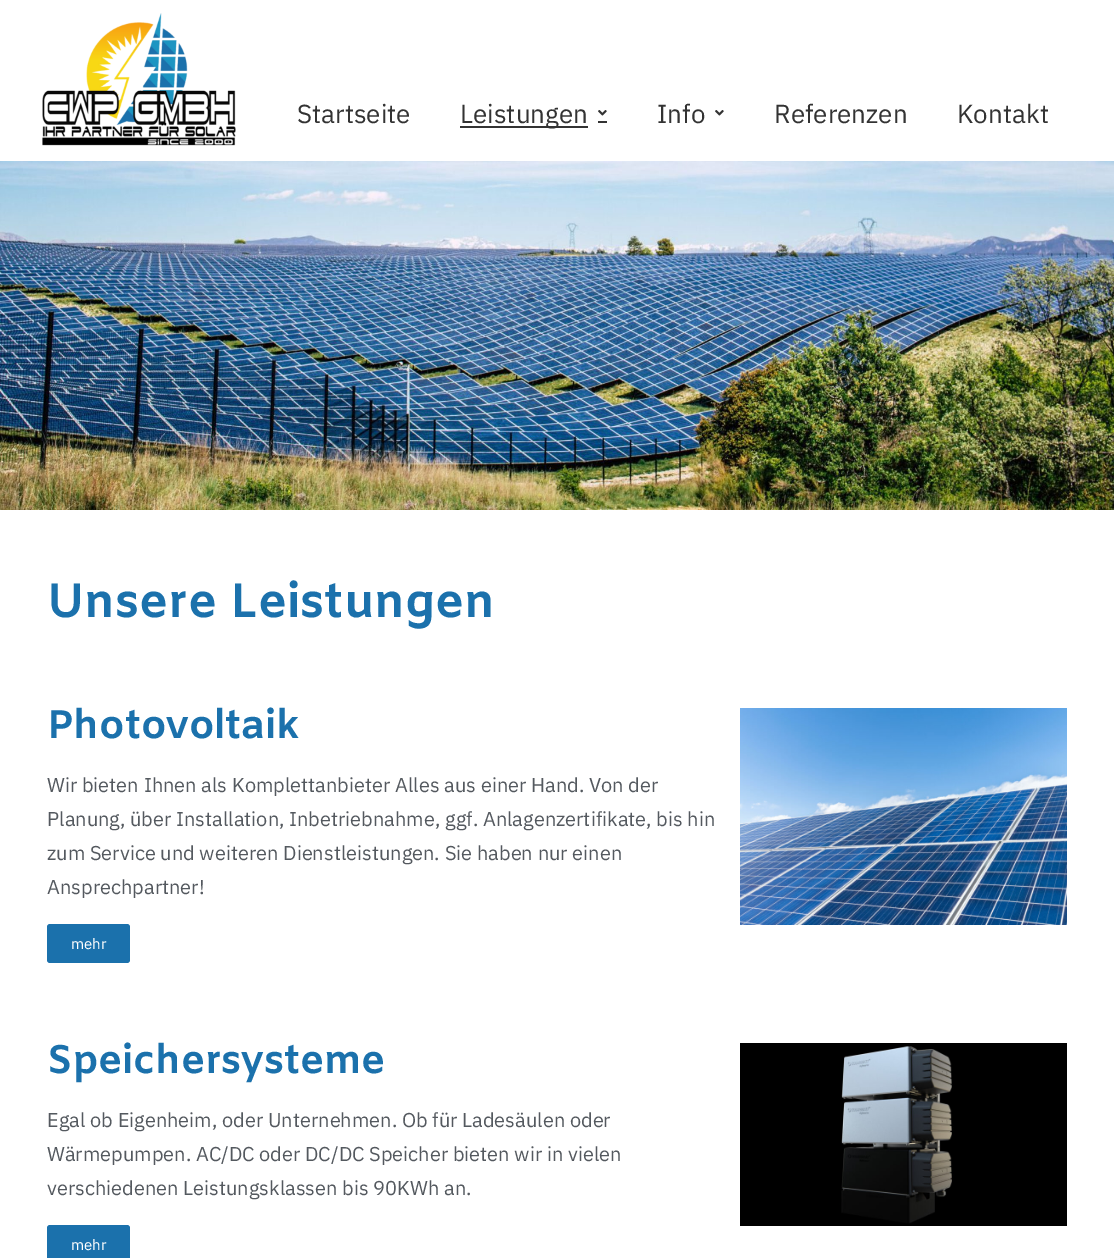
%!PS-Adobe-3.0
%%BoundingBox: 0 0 1114 1258
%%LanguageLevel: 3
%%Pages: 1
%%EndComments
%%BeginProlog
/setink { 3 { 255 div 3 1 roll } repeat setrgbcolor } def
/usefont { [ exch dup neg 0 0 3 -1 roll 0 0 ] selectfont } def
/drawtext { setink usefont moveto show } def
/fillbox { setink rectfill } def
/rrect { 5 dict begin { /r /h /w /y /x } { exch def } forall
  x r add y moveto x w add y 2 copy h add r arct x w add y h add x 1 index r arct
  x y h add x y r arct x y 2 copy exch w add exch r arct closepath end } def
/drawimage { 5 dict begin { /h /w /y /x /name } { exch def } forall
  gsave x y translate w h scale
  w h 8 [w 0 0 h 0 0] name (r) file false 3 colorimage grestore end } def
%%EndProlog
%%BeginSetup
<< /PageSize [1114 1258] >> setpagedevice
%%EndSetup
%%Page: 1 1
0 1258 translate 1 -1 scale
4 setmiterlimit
0 0 1114 1258 255 255 255 fillbox
(assets/img1.rgb) 42 13 194 133 drawimage
(Startseite) 297 123 /IBMPlexSans-Regular 26 51 51 51 drawtext
460 126 128 2 51 51 51 fillbox
(Leistungen) 460 123 /IBMPlexSans-Regular 26 51 51 51 drawtext
(assets/img2.rgb) 598 110 9 6 drawimage
598 121 9 2 51 51 51 fillbox
(Info) 657 123 /IBMPlexSans-Regular 26 51 51 51 drawtext
(assets/img2.rgb) 715 110 9 6 drawimage
(Referenzen) 774 123 /IBMPlexSans-Regular 26 51 51 51 drawtext
(Kontakt) 957 123 /IBMPlexSans-Regular 26 51 51 51 drawtext
(assets/img3.rgb) 0 161 1114 349 drawimage
(Unsere Leistungen) 47 617 /Amiko-Bold 48 27 113 172 drawtext
(Photovoltaik) 47 738 /Amiko-Bold 40 27 113 172 drawtext
(Wir bieten Ihnen als Komplettanbieter Alles aus einer Hand. Von der) 47 792 /IBMPlexSans-Regular 20 84 89 95 drawtext
(Planung, über Installation, Inbetriebnahme, ggf. Anlagenzertifikate, bis hin) 47 826 /IBMPlexSans-Regular 20 84 89 95 drawtext
(zum Service und weiteren Dienstleistungen. Sie haben nur einen) 47 860 /IBMPlexSans-Regular 20 84 89 95 drawtext
(Ansprechpartner!) 47 894 /IBMPlexSans-Regular 20 84 89 95 drawtext
27 113 172 setink
47 924 83 39 3 rrect fill
(mehr) 71 949 /IBMPlexSans-Regular 15 255 255 255 drawtext
(assets/img4.rgb) 740 708 327 217 drawimage
(Speichersysteme) 47 1073 /Amiko-Bold 40 27 113 172 drawtext
(Egal ob Eigenheim, oder Unternehmen. Ob für Ladesäulen oder) 47 1127 /IBMPlexSans-Regular 20 84 89 95 drawtext
(Wärmepumpen. AC/DC oder DC/DC Speicher bieten wir in vielen) 47 1161 /IBMPlexSans-Regular 20 84 89 95 drawtext
(verschiedenen Leistungsklassen bis 90KWh an.) 47 1195 /IBMPlexSans-Regular 20 84 89 95 drawtext
27 113 172 setink
47 1225 83 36 3 rrect fill
(mehr) 71 1250 /IBMPlexSans-Regular 15 255 255 255 drawtext
(assets/img5.rgb) 740 1043 327 183 drawimage
showpage
%%EOF
